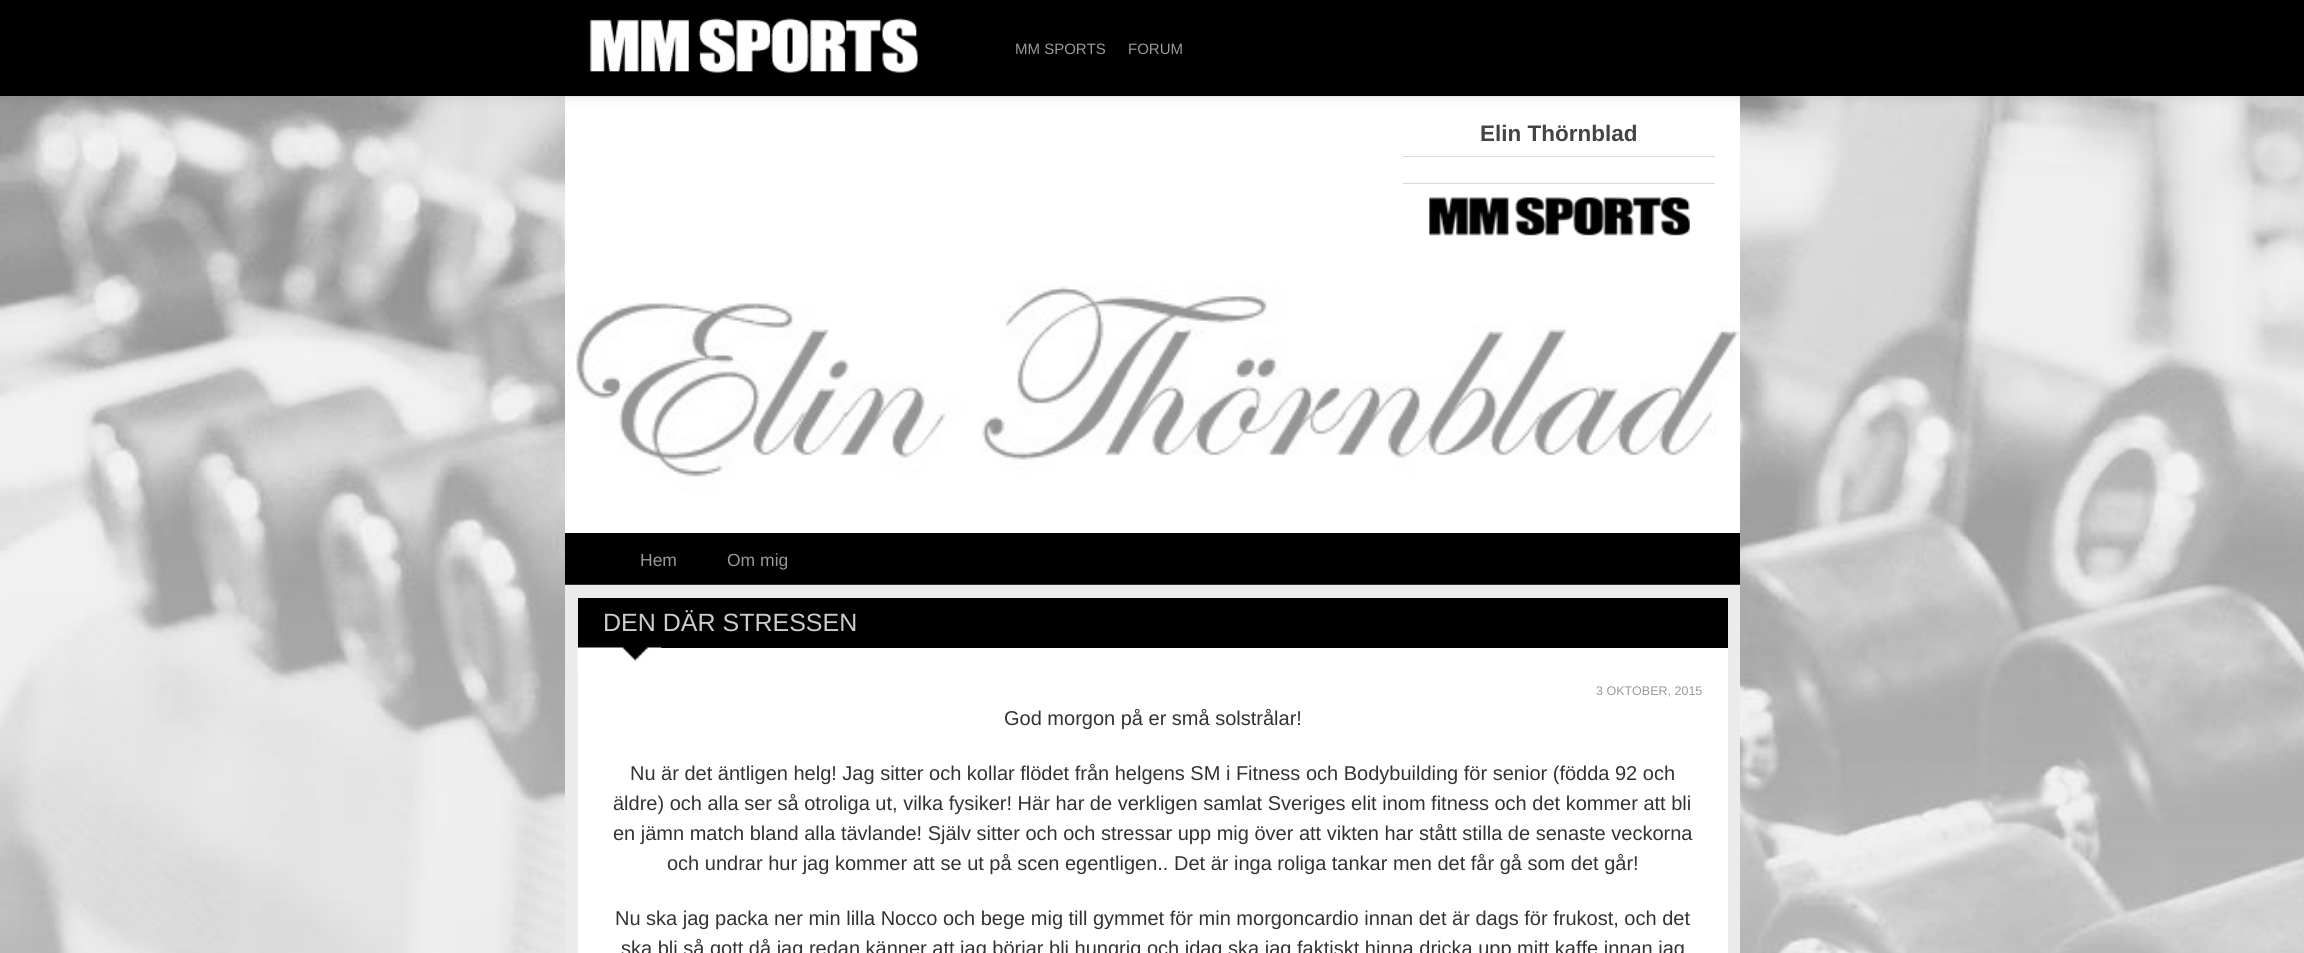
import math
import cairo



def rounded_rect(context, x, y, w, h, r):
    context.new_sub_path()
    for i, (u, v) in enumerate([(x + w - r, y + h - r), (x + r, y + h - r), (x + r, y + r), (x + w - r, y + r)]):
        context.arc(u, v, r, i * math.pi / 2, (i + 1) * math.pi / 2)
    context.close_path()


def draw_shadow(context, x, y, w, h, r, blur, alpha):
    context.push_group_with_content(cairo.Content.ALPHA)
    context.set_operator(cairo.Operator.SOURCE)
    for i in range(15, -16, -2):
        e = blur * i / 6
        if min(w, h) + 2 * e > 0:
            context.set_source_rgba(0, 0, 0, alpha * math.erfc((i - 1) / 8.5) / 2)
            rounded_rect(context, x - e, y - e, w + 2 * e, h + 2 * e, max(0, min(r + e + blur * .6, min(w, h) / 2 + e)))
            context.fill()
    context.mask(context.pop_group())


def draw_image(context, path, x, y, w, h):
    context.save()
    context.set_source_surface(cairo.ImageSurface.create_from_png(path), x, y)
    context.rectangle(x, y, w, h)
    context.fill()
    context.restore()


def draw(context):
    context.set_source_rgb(1, 1, 1)
    context.paint()
    draw_image(context, "images/1.png", 0, 96, 2304, 857)
    context.set_source_rgb(235 / 255, 235 / 255, 235 / 255)
    context.rectangle(565, 96, 1175, 1)
    context.fill()
    draw_image(context, "images/3.png", 565, 96, 1175, 437)
    context.set_source_rgb(0, 0, 0)
    draw_shadow(context, 0, 1, 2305, 97, 0, 6, 0.1)
    context.set_source_rgb(0, 0, 0)
    context.rectangle(0, 0, 2304, 96)
    context.fill()
    draw_image(context, "images/2.png", 589, 18, 329, 55)
    context.set_source_rgb(218 / 255, 218 / 255, 218 / 255)
    context.rectangle(1403, 156, 312, 1)
    context.fill()
    context.rectangle(1403, 183, 312, 1)
    context.fill()
    draw_image(context, "images/4.png", 1429, 197, 261, 39)
    context.set_source_rgb(51 / 255, 51 / 255, 51 / 255)
    context.rectangle(565, 584, 1175, 1)
    context.fill()
    context.set_source_rgb(0, 0, 0)
    context.rectangle(565, 533, 1175, 51)
    context.fill()
    context.set_source_rgb(235 / 255, 235 / 255, 235 / 255)
    context.rectangle(565, 585, 1175, 368)
    context.fill()
    context.set_source_rgb(1, 1, 1)
    context.rectangle(578, 648, 1150, 305)
    context.fill()
    context.set_source_rgb(0, 0, 0)
    context.rectangle(578, 598, 1150, 50)
    context.fill()
    draw_image(context, "images/5.png", 577, 647, 85, 29)
    context.select_font_face("Liberation Sans")
    context.set_font_size(15)
    context.set_source_rgb(153 / 255, 153 / 255, 153 / 255)
    context.move_to(1015, 54)
    context.show_text("MM SPORTS")
    context.move_to(1128, 54)
    context.show_text("FORUM")
    context.select_font_face("Liberation Sans", cairo.FontSlant.NORMAL, cairo.FontWeight.BOLD)
    context.set_font_size(22.5)
    context.set_source_rgb(68 / 255, 68 / 255, 68 / 255)
    context.move_to(1480, 141)
    context.show_text("Elin Thörnblad")
    context.select_font_face("Liberation Sans")
    context.set_font_size(17.5)
    context.set_source_rgb(153 / 255, 153 / 255, 153 / 255)
    context.move_to(640, 566)
    context.show_text("Hem")
    context.move_to(727, 566)
    context.show_text("Om mig")
    context.set_font_size(25)
    context.set_source_rgb(204 / 255, 204 / 255, 204 / 255)
    context.move_to(603, 631)
    context.show_text("DEN DÄR STRESSEN")
    context.set_font_size(12.5)
    context.set_source_rgb(153 / 255, 153 / 255, 153 / 255)
    context.move_to(1596, 695)
    context.show_text("3 OKTOBER, 2015")
    context.set_font_size(20)
    context.set_source_rgb(51 / 255, 51 / 255, 51 / 255)
    context.move_to(1004, 725)
    context.show_text("God morgon på er små solstrålar!")
    context.move_to(630, 780)
    context.show_text("Nu är det äntligen helg! Jag sitter och kollar flödet från helgens SM i Fitness och Bodybuilding för senior (födda 92 och")
    context.move_to(613, 810)
    context.show_text("äldre) och alla ser så otroliga ut, vilka fysiker! Här har de verkligen samlat Sveriges elit inom fitness och det kommer att bli")
    context.move_to(613, 840)
    context.show_text("en jämn match bland alla tävlande! Själv sitter och och stressar upp mig över att vikten har stått stilla de senaste veckorna")
    context.move_to(667, 870)
    context.show_text("och undrar hur jag kommer att se ut på scen egentligen.. Det är inga roliga tankar men det får gå som det går!")
    context.move_to(615, 925)
    context.show_text("Nu ska jag packa ner min lilla Nocco och bege mig till gymmet för min morgoncardio innan det är dags för frukost, och det")
    context.move_to(621, 955)
    context.show_text("ska bli så gott då jag redan känner att jag börjar bli hungrig och idag ska jag faktiskt hinna dricka upp mitt kaffe innan jag")


surface = cairo.ImageSurface(cairo.Format.RGB24, 2304, 953)
context = cairo.Context(surface)
options = cairo.FontOptions()
options.set_hint_metrics(cairo.HintMetrics.OFF)
options.set_hint_style(cairo.HintStyle.NONE)
context.set_font_options(options)
context.set_miter_limit(4)
draw(context)
surface.write_to_png("out.png")
